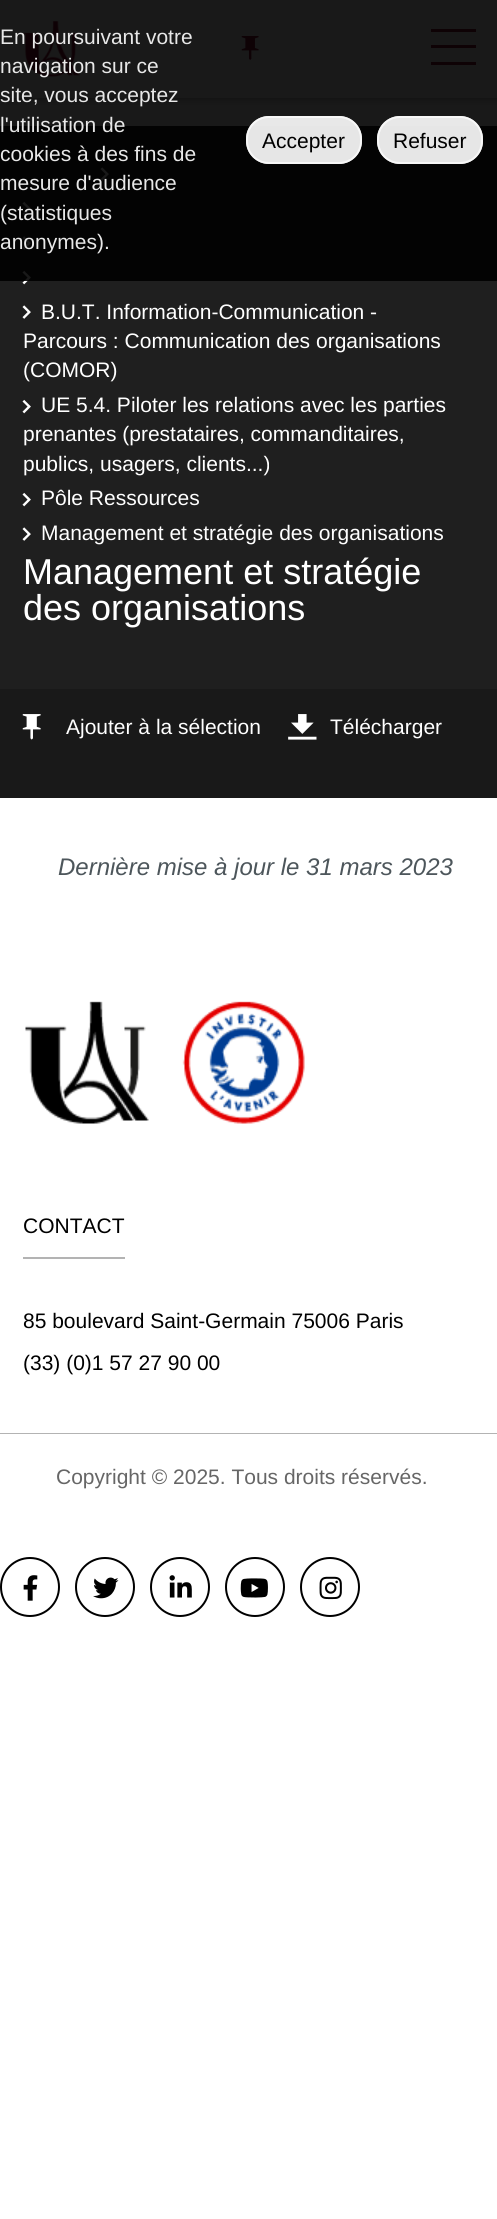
import math
import cairo



def rounded_rect(context, x, y, w, h, r):
    context.new_sub_path()
    for i, (u, v) in enumerate([(x + w - r, y + h - r), (x + r, y + h - r), (x + r, y + r), (x + w - r, y + r)]):
        context.arc(u, v, r, i * math.pi / 2, (i + 1) * math.pi / 2)
    context.close_path()


def draw_shadow(context, x, y, w, h, r, blur, alpha):
    context.push_group_with_content(cairo.Content.ALPHA)
    context.set_operator(cairo.Operator.SOURCE)
    for i in range(15, -16, -2):
        e = blur * i / 6
        if min(w, h) + 2 * e > 0:
            context.set_source_rgba(0, 0, 0, alpha * math.erfc((i - 1) / 8.5) / 2)
            rounded_rect(context, x - e, y - e, w + 2 * e, h + 2 * e, max(0, min(r + e + blur * .6, min(w, h) / 2 + e)))
            context.fill()
    context.mask(context.pop_group())


def draw_image(context, path, x, y, w, h):
    context.save()
    context.set_source_surface(cairo.ImageSurface.create_from_png(path), x, y)
    context.rectangle(x, y, w, h)
    context.fill()
    context.restore()


def draw(context):
    context.set_source_rgb(1, 1, 1)
    context.paint()
    context.set_source_rgb(138 / 255, 138 / 255, 138 / 255)
    draw_shadow(context, 0, 0, 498, 98, 0, 4, 1)
    context.set_source_rgb(1, 1, 1)
    context.rectangle(0, 0, 497, 98)
    context.fill()
    draw_image(context, "images/1.png", 22, 21, 58, 56)
    draw_image(context, "images/2.png", 241, 36, 18, 24)
    context.set_source_rgb(138 / 255, 21 / 255, 56 / 255)
    context.rectangle(431, 29, 45, 3)
    context.fill()
    context.rectangle(431, 45, 45, 3)
    context.fill()
    context.rectangle(431, 62, 45, 3)
    context.fill()
    context.set_source_rgb(31 / 255, 31 / 255, 31 / 255)
    context.rectangle(0, 126, 497, 563)
    context.fill()
    draw_image(context, "images/3.png", 100, 167, 9, 14)
    draw_image(context, "images/4.png", 22, 201, 9, 15)
    draw_image(context, "images/3.png", 22, 236, 9, 14)
    draw_image(context, "images/4.png", 22, 270, 9, 15)
    context.set_source_rgba(0, 0, 0, 0.9)
    context.rectangle(0, 0, 497, 281)
    context.fill()
    context.set_source_rgba(1, 1, 1, 0.9)
    rounded_rect(context, 246, 116, 116, 48, 23)
    context.fill()
    rounded_rect(context, 247, 117, 114, 46, 22)
    context.set_source_rgba(249 / 255, 249 / 255, 249 / 255, 0.9)
    context.stroke()
    context.set_source_rgba(1, 1, 1, 0.9)
    rounded_rect(context, 377, 116, 106, 48, 23)
    context.fill()
    rounded_rect(context, 378, 117, 104, 46, 22)
    context.set_source_rgba(249 / 255, 249 / 255, 249 / 255, 0.9)
    context.stroke()
    draw_image(context, "images/3.png", 22, 305, 9, 14)
    draw_image(context, "images/4.png", 22, 399, 9, 15)
    draw_image(context, "images/4.png", 22, 492, 9, 15)
    draw_image(context, "images/3.png", 22, 527, 9, 14)
    context.set_source_rgb(25 / 255, 25 / 255, 25 / 255)
    context.rectangle(0, 689, 497, 109)
    context.fill()
    draw_image(context, "images/5.png", 22, 714, 19, 26)
    draw_image(context, "images/6.png", 288, 714, 29, 26)
    context.set_source_rgb(179 / 255, 179 / 255, 179 / 255)
    context.rectangle(0, 1433, 497, 1)
    context.fill()
    draw_image(context, "images/7.png", 25, 1001, 280, 123)
    context.rectangle(23, 1257, 102, 2)
    context.fill()
    context.arc(30, 1587, 29, 0, 2 * math.pi)
    context.set_source_rgb(0, 0, 0)
    context.stroke()
    draw_image(context, "images/8.png", 23, 1575, 15, 26)
    context.arc(105, 1587, 29, 0, 2 * math.pi)
    context.stroke()
    draw_image(context, "images/9.png", 93, 1577, 26, 22)
    context.arc(180, 1587, 29, 0, 2 * math.pi)
    context.stroke()
    draw_image(context, "images/10.png", 169, 1575, 23, 23)
    context.arc(255, 1587, 29, 0, 2 * math.pi)
    context.stroke()
    draw_image(context, "images/11.png", 240, 1578, 28, 20)
    context.arc(330, 1587, 29, 0, 2 * math.pi)
    context.stroke()
    draw_image(context, "images/12.png", 319, 1576, 23, 24)
    context.select_font_face("Liberation Sans")
    context.set_font_size(21)
    context.set_source_rgb(232 / 255, 232 / 255, 232 / 255)
    context.move_to(0, 44)
    context.show_text("En poursuivant votre")
    context.move_to(0, 73)
    context.show_text("navigation sur ce")
    context.move_to(0, 102)
    context.show_text("site, vous acceptez")
    context.move_to(0, 132)
    context.show_text("l'utilisation de")
    context.move_to(0, 161)
    context.show_text("cookies à des fins de")
    context.move_to(0, 190)
    context.show_text("mesure d'audience")
    context.move_to(0, 220)
    context.show_text("(statistiques")
    context.move_to(0, 249)
    context.show_text("anonymes).")
    context.set_source_rgb(0, 0, 0)
    context.move_to(262, 148)
    context.show_text("Accepter")
    context.move_to(393, 148)
    context.show_text("Refuser")
    context.set_source_rgb(1, 1, 1)
    context.move_to(41, 319)
    context.show_text("B.U.T. Information-Communication -")
    context.move_to(23, 348)
    context.show_text("Parcours : Communication des organisations")
    context.move_to(23, 377)
    context.show_text("(COMOR)")
    context.move_to(41, 412)
    context.show_text("UE 5.4. Piloter les relations avec les parties")
    context.move_to(23, 441)
    context.show_text("prenantes (prestataires, commanditaires,")
    context.move_to(23, 471)
    context.show_text("publics, usagers, clients...)")
    context.move_to(41, 505)
    context.show_text("Pôle Ressources")
    context.move_to(41, 540)
    context.show_text("Management et stratégie des organisations")
    context.set_font_size(36)
    context.move_to(23, 584)
    context.show_text("Management et stratégie")
    context.move_to(23, 620)
    context.show_text("des organisations")
    context.set_font_size(21)
    context.move_to(66, 734)
    context.show_text("Ajouter à la sélection")
    context.move_to(330, 734)
    context.show_text("Télécharger")
    context.select_font_face("Liberation Sans", cairo.FontSlant.ITALIC)
    context.set_font_size(24)
    context.set_source_rgb(77 / 255, 86 / 255, 91 / 255)
    context.move_to(58, 875)
    context.show_text("Dernière mise à jour le 31 mars 2023")
    context.select_font_face("Liberation Sans")
    context.set_font_size(21)
    context.set_source_rgb(0, 0, 0)
    context.move_to(23, 1233)
    context.show_text("CONTACT")
    context.move_to(23, 1328)
    context.show_text("85 boulevard Saint-Germain 75006 Paris")
    context.move_to(23, 1370)
    context.show_text("(33) (0)1 57 27 90 00")
    context.set_source_rgb(102 / 255, 102 / 255, 102 / 255)
    context.move_to(56, 1484)
    context.show_text("Copyright © 2025. Tous droits réservés.")


surface = cairo.ImageSurface(cairo.Format.RGB24, 497, 2219)
context = cairo.Context(surface)
options = cairo.FontOptions()
options.set_hint_metrics(cairo.HintMetrics.OFF)
options.set_hint_style(cairo.HintStyle.NONE)
context.set_font_options(options)
context.set_miter_limit(4)
draw(context)
surface.write_to_png("out.png")
